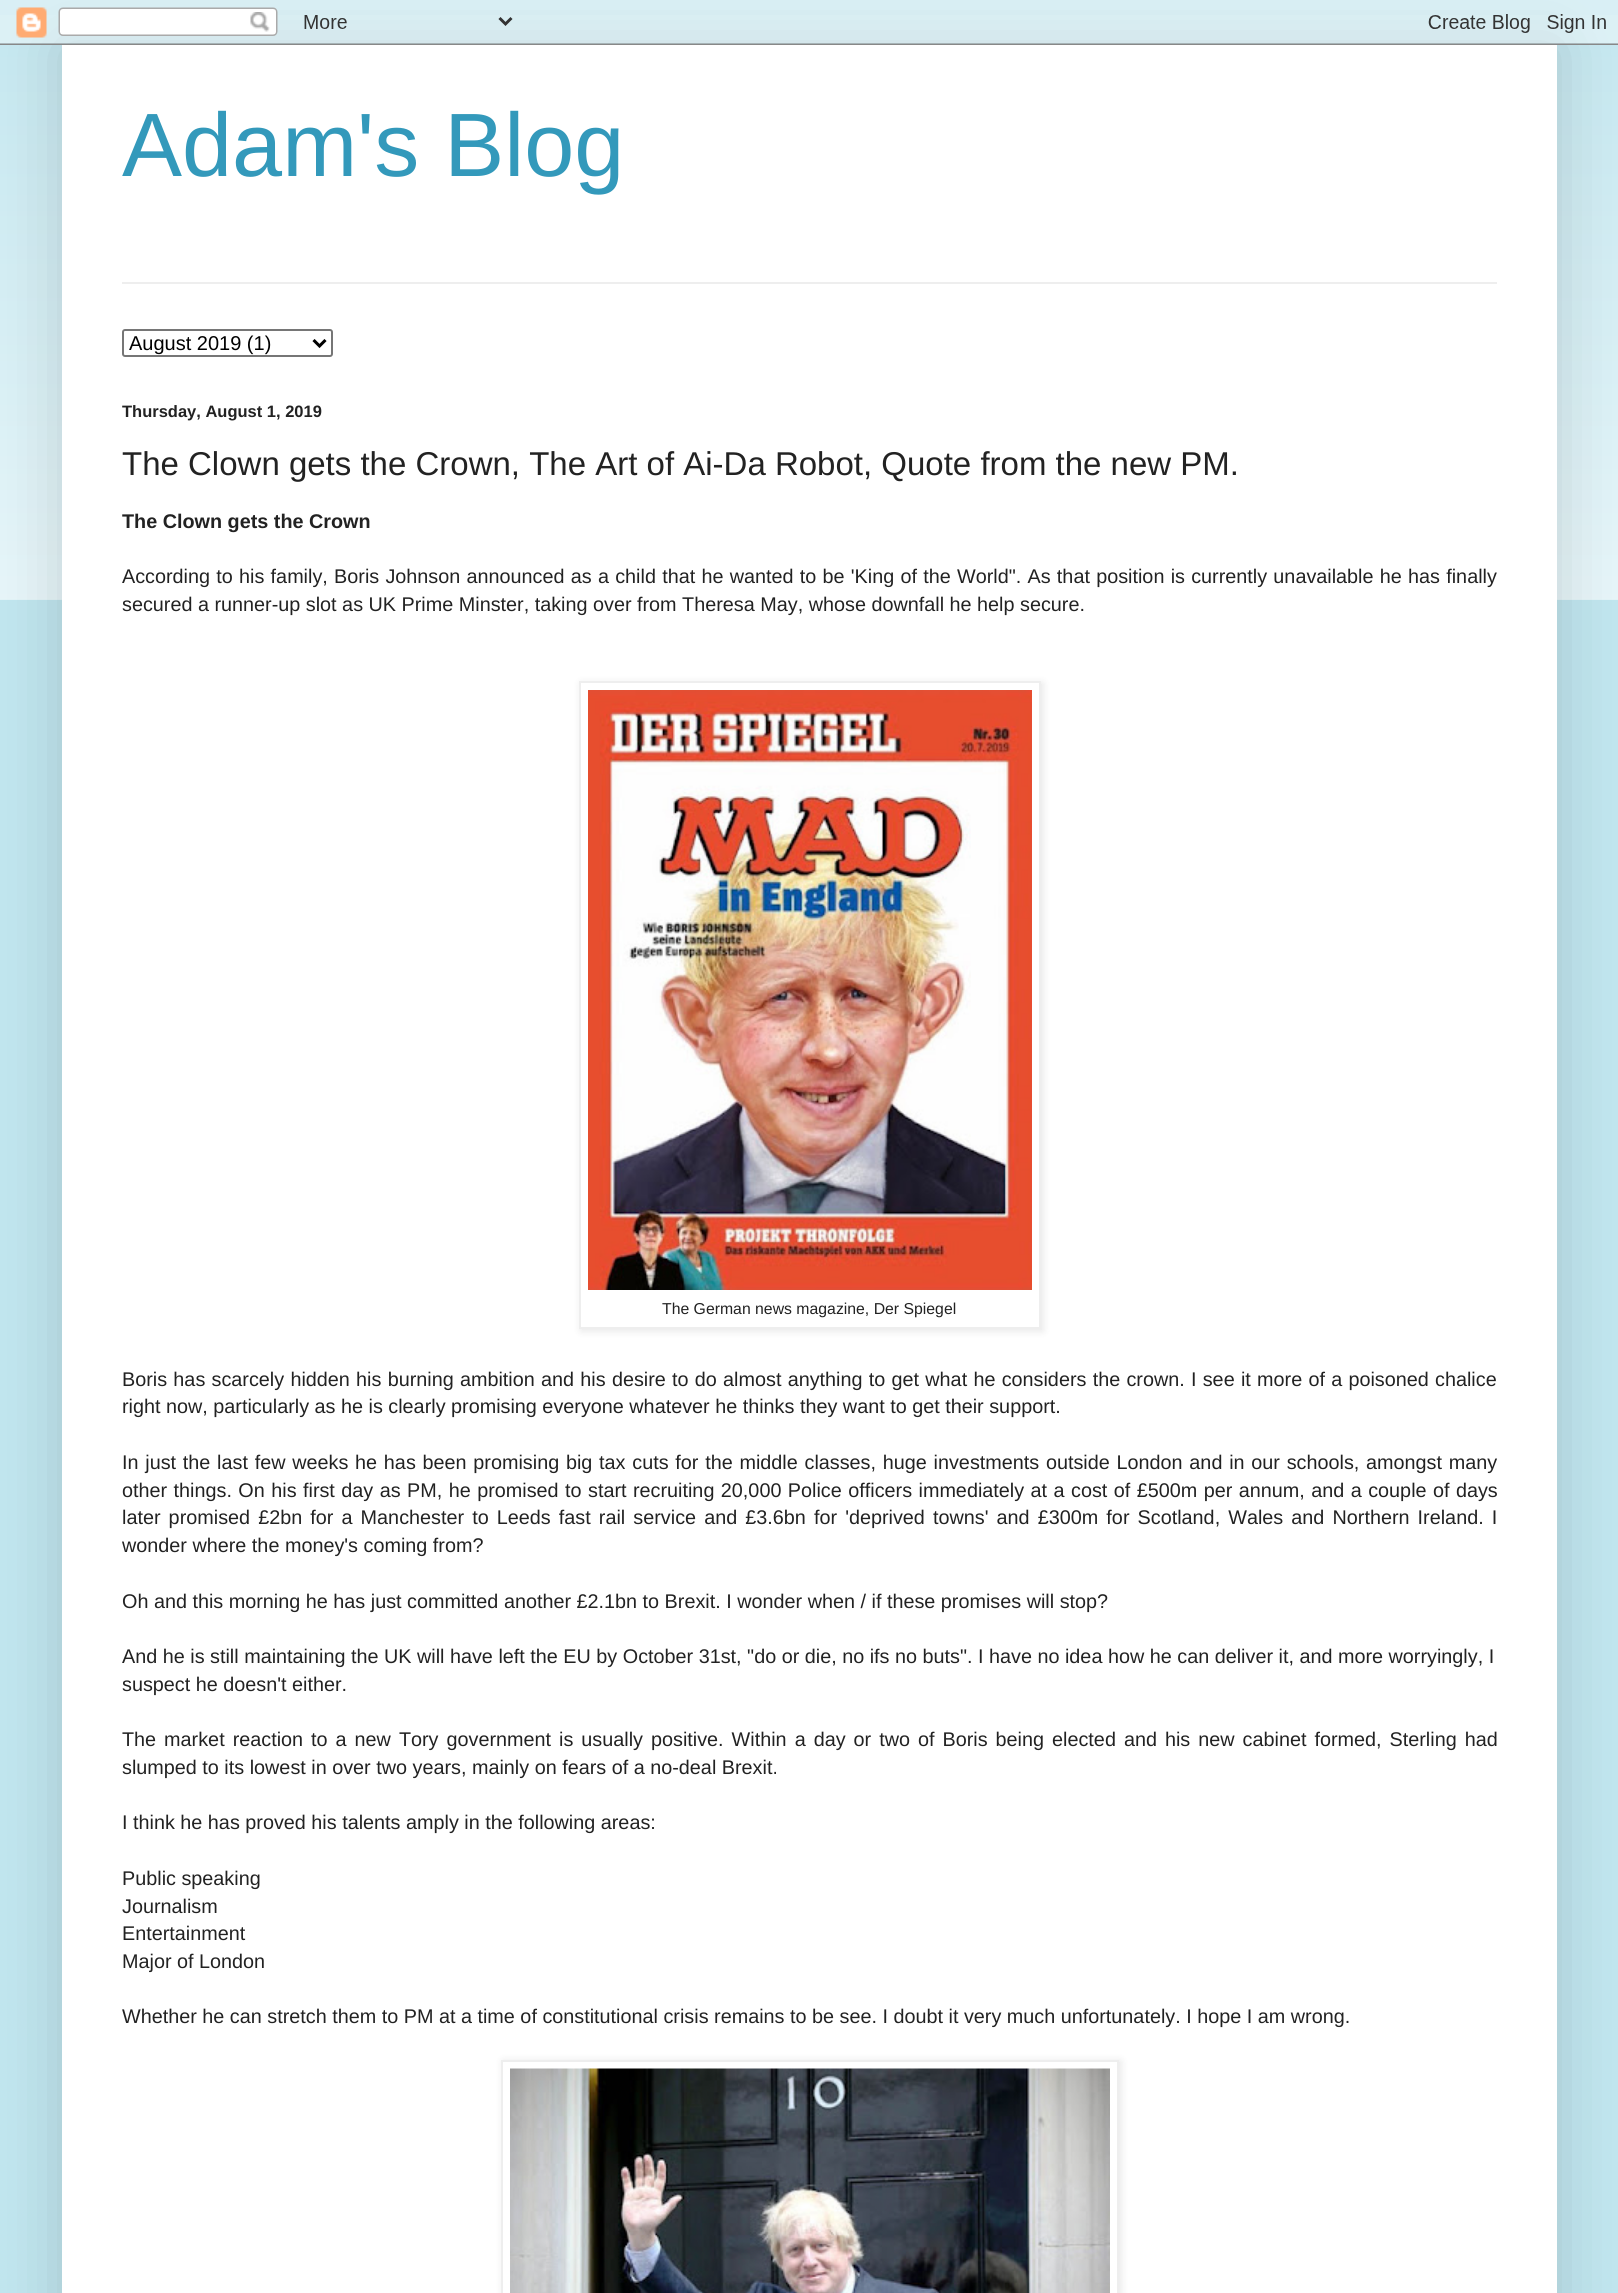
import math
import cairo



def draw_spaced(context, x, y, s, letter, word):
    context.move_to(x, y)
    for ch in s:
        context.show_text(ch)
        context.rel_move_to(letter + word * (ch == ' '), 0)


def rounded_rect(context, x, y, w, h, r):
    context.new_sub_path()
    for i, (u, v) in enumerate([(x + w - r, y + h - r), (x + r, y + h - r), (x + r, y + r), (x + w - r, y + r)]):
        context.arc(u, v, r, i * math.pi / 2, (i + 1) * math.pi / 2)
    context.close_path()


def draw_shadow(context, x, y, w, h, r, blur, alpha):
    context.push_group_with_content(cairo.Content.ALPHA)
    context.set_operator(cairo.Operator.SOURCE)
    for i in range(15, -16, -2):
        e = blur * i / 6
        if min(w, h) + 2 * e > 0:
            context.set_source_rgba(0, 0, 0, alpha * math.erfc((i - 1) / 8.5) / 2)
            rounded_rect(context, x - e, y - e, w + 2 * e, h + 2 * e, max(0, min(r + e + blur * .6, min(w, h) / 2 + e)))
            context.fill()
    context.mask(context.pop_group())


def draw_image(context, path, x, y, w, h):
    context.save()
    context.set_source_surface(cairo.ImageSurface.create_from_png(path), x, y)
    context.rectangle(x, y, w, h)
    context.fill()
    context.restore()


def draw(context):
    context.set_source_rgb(192 / 255, 229 / 255, 238 / 255)
    context.paint()
    draw_image(context, "images/2.png", 0, 15, 1618, 585)
    context.set_source_rgb(0, 0, 0)
    draw_shadow(context, 62, 45, 1495, 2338, 0, 30, 0.15)
    draw_image(context, "images/1.png", 0, 0, 1618, 45)
    context.set_source_rgb(1, 1, 1)
    context.rectangle(62, 45, 1495, 2248)
    context.fill()
    context.set_source_rgb(238 / 255, 238 / 255, 238 / 255)
    context.rectangle(122, 282, 1375, 2)
    context.fill()
    rounded_rect(context, 123, 330, 209, 26, 2)
    context.set_source_rgb(118 / 255, 118 / 255, 118 / 255)
    context.stroke()
    context.new_path()
    context.move_to(313.5, 340)
    context.line_to(319.5, 346)
    context.line_to(325.5, 340)
    context.set_source_rgb(0, 0, 0)
    context.set_line_width(3)
    context.stroke()
    context.save()
    context.set_fill_rule(cairo.FillRule.EVEN_ODD)
    context.new_path()
    context.move_to(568, 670)
    context.line_to(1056, 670)
    context.line_to(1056, 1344)
    context.line_to(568, 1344)
    context.close_path()
    context.move_to(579, 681)
    context.line_to(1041, 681)
    context.line_to(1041, 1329)
    context.line_to(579, 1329)
    context.close_path()
    context.clip()
    context.set_source_rgb(0, 0, 0)
    draw_shadow(context, 581, 683, 462, 648, 0, 4, 0.1)
    context.restore()
    context.rectangle(580, 682, 460, 646)
    context.set_source_rgb(238 / 255, 238 / 255, 238 / 255)
    context.set_line_width(2)
    context.stroke()
    draw_image(context, "images/3.png", 588, 690, 444, 600)
    context.save()
    context.set_fill_rule(cairo.FillRule.EVEN_ODD)
    context.new_path()
    context.move_to(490, 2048)
    context.line_to(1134, 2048)
    context.line_to(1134, 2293)
    context.line_to(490, 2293)
    context.close_path()
    context.move_to(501, 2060)
    context.line_to(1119, 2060)
    context.line_to(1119, 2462)
    context.line_to(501, 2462)
    context.close_path()
    context.clip()
    context.set_source_rgb(0, 0, 0)
    draw_shadow(context, 503, 2061, 618, 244, 0, 4, 0.1)
    context.restore()
    context.rectangle(502, 2061, 616, 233)
    context.stroke()
    draw_image(context, "images/4.png", 510, 2068, 600, 225)
    context.select_font_face("Liberation Sans")
    context.set_font_size(90)
    context.set_source_rgb(51 / 255, 153 / 255, 187 / 255)
    context.move_to(122, 176)
    context.show_text("Adam's Blog")
    context.set_font_size(20)
    context.set_source_rgb(0, 0, 0)
    context.move_to(129, 350)
    context.show_text("August 2019 (1)")
    context.select_font_face("Liberation Sans", cairo.FontSlant.NORMAL, cairo.FontWeight.BOLD)
    context.set_font_size(16.5)
    context.set_source_rgb(34 / 255, 34 / 255, 34 / 255)
    context.move_to(122, 417)
    context.show_text("Thursday, August 1, 2019")
    context.select_font_face("Liberation Sans")
    context.set_font_size(33)
    context.move_to(122, 475)
    context.show_text("The Clown gets the Crown, The Art of Ai-Da Robot, Quote from the new PM.")
    context.select_font_face("Liberation Sans", cairo.FontSlant.NORMAL, cairo.FontWeight.BOLD)
    context.set_font_size(19.8)
    context.move_to(122, 528)
    context.show_text("The Clown gets the Crown")
    context.select_font_face("Liberation Sans")
    draw_spaced(context, 122, 583, "According to his family, Boris Johnson announced as a child that he wanted to be 'King of the World\". As that position is currently unavailable he has finally", 0, 0.75)
    context.move_to(122, 611)
    context.show_text("secured a runner-up slot as UK Prime Minster, taking over from Theresa May, whose downfall he help secure.")
    context.set_font_size(15.8)
    context.move_to(662, 1314)
    context.show_text("The German news magazine, Der Spiegel")
    context.set_font_size(19.8)
    draw_spaced(context, 122, 1386, "Boris has scarcely hidden his burning ambition and his desire to do almost anything to get what he considers the crown. I see it more of a poisoned chalice", 0, 0.75)
    context.move_to(122, 1413)
    context.show_text("right now, particularly as he is clearly promising everyone whatever he thinks they want to get their support.")
    draw_spaced(context, 122, 1469, "In just the last few weeks he has been promising big tax cuts for the middle classes, huge investments outside London and in our schools, amongst many", 0, 1.25)
    draw_spaced(context, 122, 1497, "other things. On his first day as PM, he promised to start recruiting 20,000 Police officers immediately at a cost of £500m per annum, and a couple of days", 0, 0.95)
    draw_spaced(context, 122, 1524, "later promised £2bn for a Manchester to Leeds fast rail service and £3.6bn for 'deprived towns' and £300m for Scotland, Wales and Northern Ireland. I", 0, 2.6)
    context.move_to(122, 1552)
    context.show_text("wonder where the money's coming from?")
    context.move_to(122, 1608)
    context.show_text("Oh and this morning he has just committed another £2.1bn to Brexit. I wonder when / if these promises will stop?")
    context.move_to(122, 1663)
    context.show_text("And he is still maintaining the UK will have left the EU by October 31st, \"do or die, no ifs no buts\". I have no idea how he can deliver it, and more worryingly, I")
    context.move_to(122, 1691)
    context.show_text("suspect he doesn't either.")
    draw_spaced(context, 122, 1746, "The market reaction to a new Tory government is usually positive. Within a day or two of Boris being elected and his new cabinet formed, Sterling had", 0, 2.5)
    context.move_to(122, 1774)
    context.show_text("slumped to its lowest in over two years, mainly on fears of a no-deal Brexit.")
    context.move_to(122, 1829)
    context.show_text("I think he has proved his talents amply in the following areas:")
    context.move_to(122, 1885)
    context.show_text("Public speaking")
    context.move_to(122, 1913)
    context.show_text("Journalism")
    context.move_to(122, 1940)
    context.show_text("Entertainment")
    context.move_to(122, 1968)
    context.show_text("Major of London")
    context.move_to(122, 2023)
    context.show_text("Whether he can stretch them to PM at a time of constitutional crisis remains to be see. I doubt it very much unfortunately. I hope I am wrong.")


surface = cairo.ImageSurface(cairo.Format.RGB24, 1618, 2293)
context = cairo.Context(surface)
options = cairo.FontOptions()
options.set_hint_metrics(cairo.HintMetrics.OFF)
options.set_hint_style(cairo.HintStyle.NONE)
context.set_font_options(options)
context.set_miter_limit(4)
draw(context)
surface.write_to_png("out.png")
